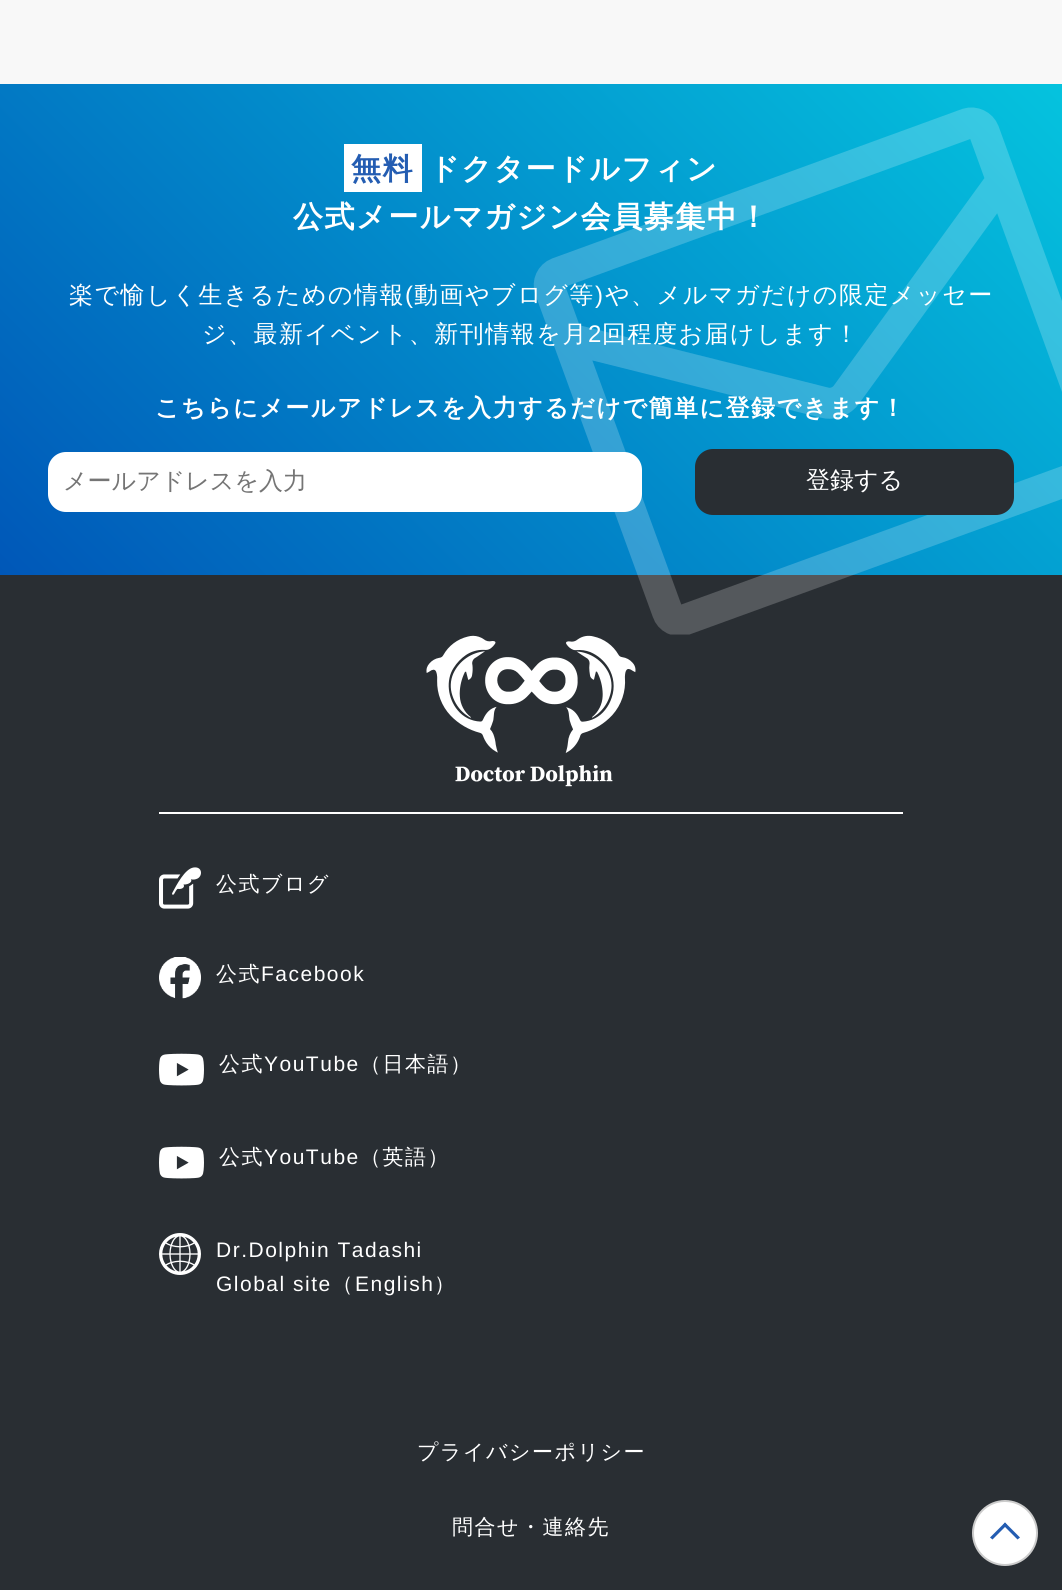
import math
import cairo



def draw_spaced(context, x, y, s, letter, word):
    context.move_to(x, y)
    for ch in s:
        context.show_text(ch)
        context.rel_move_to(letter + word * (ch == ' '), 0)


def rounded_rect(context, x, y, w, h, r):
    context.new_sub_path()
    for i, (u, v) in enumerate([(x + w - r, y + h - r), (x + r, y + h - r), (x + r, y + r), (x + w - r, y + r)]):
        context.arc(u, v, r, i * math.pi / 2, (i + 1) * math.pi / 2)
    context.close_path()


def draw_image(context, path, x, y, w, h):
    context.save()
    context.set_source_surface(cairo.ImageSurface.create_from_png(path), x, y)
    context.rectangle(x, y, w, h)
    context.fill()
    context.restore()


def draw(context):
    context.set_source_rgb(248 / 255, 248 / 255, 248 / 255)
    context.paint()
    gradient = cairo.LinearGradient(919, -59, 143, 717)
    gradient.add_color_stop_rgba(0, 5 / 255, 195 / 255, 222 / 255, 1)
    gradient.add_color_stop_rgba(1, 0, 87 / 255, 184 / 255, 1)
    context.set_source(gradient)
    context.rectangle(0, 84, 1062, 491)
    context.fill()
    context.set_source_rgb(1, 1, 1)
    context.rectangle(344, 144, 78, 48)
    context.fill()
    context.set_source_rgb(41 / 255, 46 / 255, 51 / 255)
    context.rectangle(0, 575, 1062, 1015)
    context.fill()
    draw_image(context, "images/1.png", 426, 635, 210, 152)
    context.set_source_rgb(1, 1, 1)
    context.rectangle(159, 812, 744, 2)
    context.fill()
    draw_image(context, "images/2.png", 159, 867, 42, 42)
    draw_image(context, "images/3.png", 159, 957, 42, 42)
    draw_image(context, "images/4.png", 159, 1053, 45, 33)
    draw_image(context, "images/4.png", 159, 1146, 45, 33)
    draw_image(context, "images/5.png", 159, 1233, 42, 42)
    context.arc(1005, 1533, 32, 0, 2 * math.pi)
    context.fill_preserve()
    context.set_source_rgb(204 / 255, 204 / 255, 204 / 255)
    context.stroke()
    context.set_source_rgb(36 / 255, 93 / 255, 178 / 255)
    context.new_path()
    context.move_to(1005, 1522.5)
    context.line_to(1020, 1537.5)
    context.line_to(1017.5, 1539.5)
    context.line_to(1003, 1525)
    context.close_path()
    context.fill()
    context.new_path()
    context.move_to(1005, 1522.5)
    context.line_to(1007, 1525)
    context.line_to(992.5, 1539.5)
    context.line_to(990, 1537.5)
    context.close_path()
    context.fill()
    context.select_font_face("WenQuanYi Zen Hei", cairo.FontSlant.NORMAL, cairo.FontWeight.BOLD)
    context.set_font_size(30)
    draw_spaced(context, 351, 179, "無料", 1.5, 0)
    context.set_source_rgb(1, 1, 1)
    draw_spaced(context, 429, 179, "ドクタードルフィン", 1.5, 0)
    draw_spaced(context, 293, 227, "公式メールマガジン会員募集中！", 1.5, 0)
    context.select_font_face("WenQuanYi Zen Hei Medium")
    context.set_font_size(24)
    draw_spaced(context, 69, 303, "楽で愉しく生きるための情報", 1.5, 0)
    context.select_font_face("Liberation Sans")
    draw_spaced(context, 405, 303, "(", 1.5, 0)
    context.select_font_face("WenQuanYi Zen Hei Medium")
    draw_spaced(context, 414, 303, "動画やブログ等", 1.5, 0)
    context.select_font_face("Liberation Sans")
    draw_spaced(context, 595, 303, ")", 1.5, 0)
    context.select_font_face("WenQuanYi Zen Hei Medium")
    draw_spaced(context, 605, 303, "や、メルマガだけの限定メッセー", 1.5, 0)
    draw_spaced(context, 202, 342, "ジ、最新イベント、新刊情報を月", 1.5, 0)
    context.select_font_face("Liberation Sans")
    draw_spaced(context, 588, 342, "2", 1.5, 0)
    context.select_font_face("WenQuanYi Zen Hei Medium")
    draw_spaced(context, 602, 342, "回程度お届けします！", 1.5, 0)
    context.select_font_face("WenQuanYi Zen Hei", cairo.FontSlant.NORMAL, cairo.FontWeight.BOLD)
    draw_spaced(context, 155, 416, "こちらにメールアドレスを入力するだけで簡単に登録できます！", 1.5, 0)
    context.save()
    context.new_path()
    context.move_to(531, 99)
    context.line_to(1062, 99)
    context.line_to(1062, 634.5)
    context.line_to(531, 634.5)
    context.close_path()
    context.clip()
    context.new_path()
    context.move_to(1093.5, 471)
    context.line_to(684, 620)
    context.curve_to(677, 622.5, 669.5, 618.5, 667.5, 612)
    context.line_to(550, 289.5)
    context.curve_to(547.5, 283, 551, 275.5, 557.5, 273)
    context.line_to(967.5, 123.5)
    context.curve_to(974, 121.5, 981.5, 125, 984, 131.5)
    context.line_to(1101, 454)
    context.curve_to(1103.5, 460.5, 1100.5, 468.5, 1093.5, 471)
    context.close_path()
    context.move_to(570.5, 339)
    context.line_to(824, 402.5)
    context.curve_to(832.5, 405, 841.5, 401.5, 846.5, 394.5)
    context.line_to(1000, 183)
    context.set_source_rgba(1, 1, 1, 0.2)
    context.set_line_width(31)
    context.stroke()
    context.restore()
    rounded_rect(context, 48, 452, 594, 60, 18)
    context.fill()
    context.select_font_face("WenQuanYi Zen Hei Medium")
    context.set_source_rgb(117 / 255, 117 / 255, 117 / 255)
    context.move_to(63, 489)
    context.show_text("メールアドレスを入力")
    context.set_source_rgb(41 / 255, 46 / 255, 51 / 255)
    rounded_rect(context, 696.5, 450.5, 316, 63, 16.5)
    context.fill_preserve()
    context.set_line_width(3)
    context.stroke()
    context.set_source_rgb(1, 1, 1)
    context.move_to(806, 488)
    context.show_text("登録する")
    context.set_font_size(21)
    draw_spaced(context, 216, 891, "公式ブログ", 1.5, 0)
    draw_spaced(context, 216, 981, "公式", 1.5, 0)
    context.select_font_face("Liberation Sans")
    draw_spaced(context, 261, 981, "Facebook", 1.5, 0)
    context.select_font_face("WenQuanYi Zen Hei Medium")
    draw_spaced(context, 219, 1071, "公式", 1.5, 0)
    context.select_font_face("Liberation Sans")
    draw_spaced(context, 264, 1071, "YouTube", 1.5, 0)
    context.select_font_face("WenQuanYi Zen Hei Medium")
    draw_spaced(context, 360, 1071, "（日本語）", 1.5, 0)
    draw_spaced(context, 219, 1164, "公式", 1.5, 0)
    context.select_font_face("Liberation Sans")
    draw_spaced(context, 264, 1164, "YouTube", 1.5, 0)
    context.select_font_face("WenQuanYi Zen Hei Medium")
    draw_spaced(context, 360, 1164, "（英語）", 1.5, 0)
    context.select_font_face("Liberation Sans")
    draw_spaced(context, 216, 1257, "Dr.Dolphin Tadashi", 1.5, 0)
    draw_spaced(context, 216, 1291, "Global site", 1.5, 0)
    context.select_font_face("WenQuanYi Zen Hei Medium")
    draw_spaced(context, 332, 1291, "（", 1.5, 0)
    context.select_font_face("Liberation Sans")
    draw_spaced(context, 355, 1291, "English", 1.5, 0)
    context.select_font_face("WenQuanYi Zen Hei Medium")
    draw_spaced(context, 434, 1291, "）", 1.5, 0)
    draw_spaced(context, 417, 1459, "プライバシーポリシー", 1.5, 0)
    draw_spaced(context, 452, 1534, "問合せ・連絡先", 1.5, 0)


surface = cairo.ImageSurface(cairo.Format.RGB24, 1062, 1590)
context = cairo.Context(surface)
options = cairo.FontOptions()
options.set_hint_metrics(cairo.HintMetrics.OFF)
options.set_hint_style(cairo.HintStyle.NONE)
context.set_font_options(options)
context.set_miter_limit(4)
draw(context)
surface.write_to_png("out.png")
